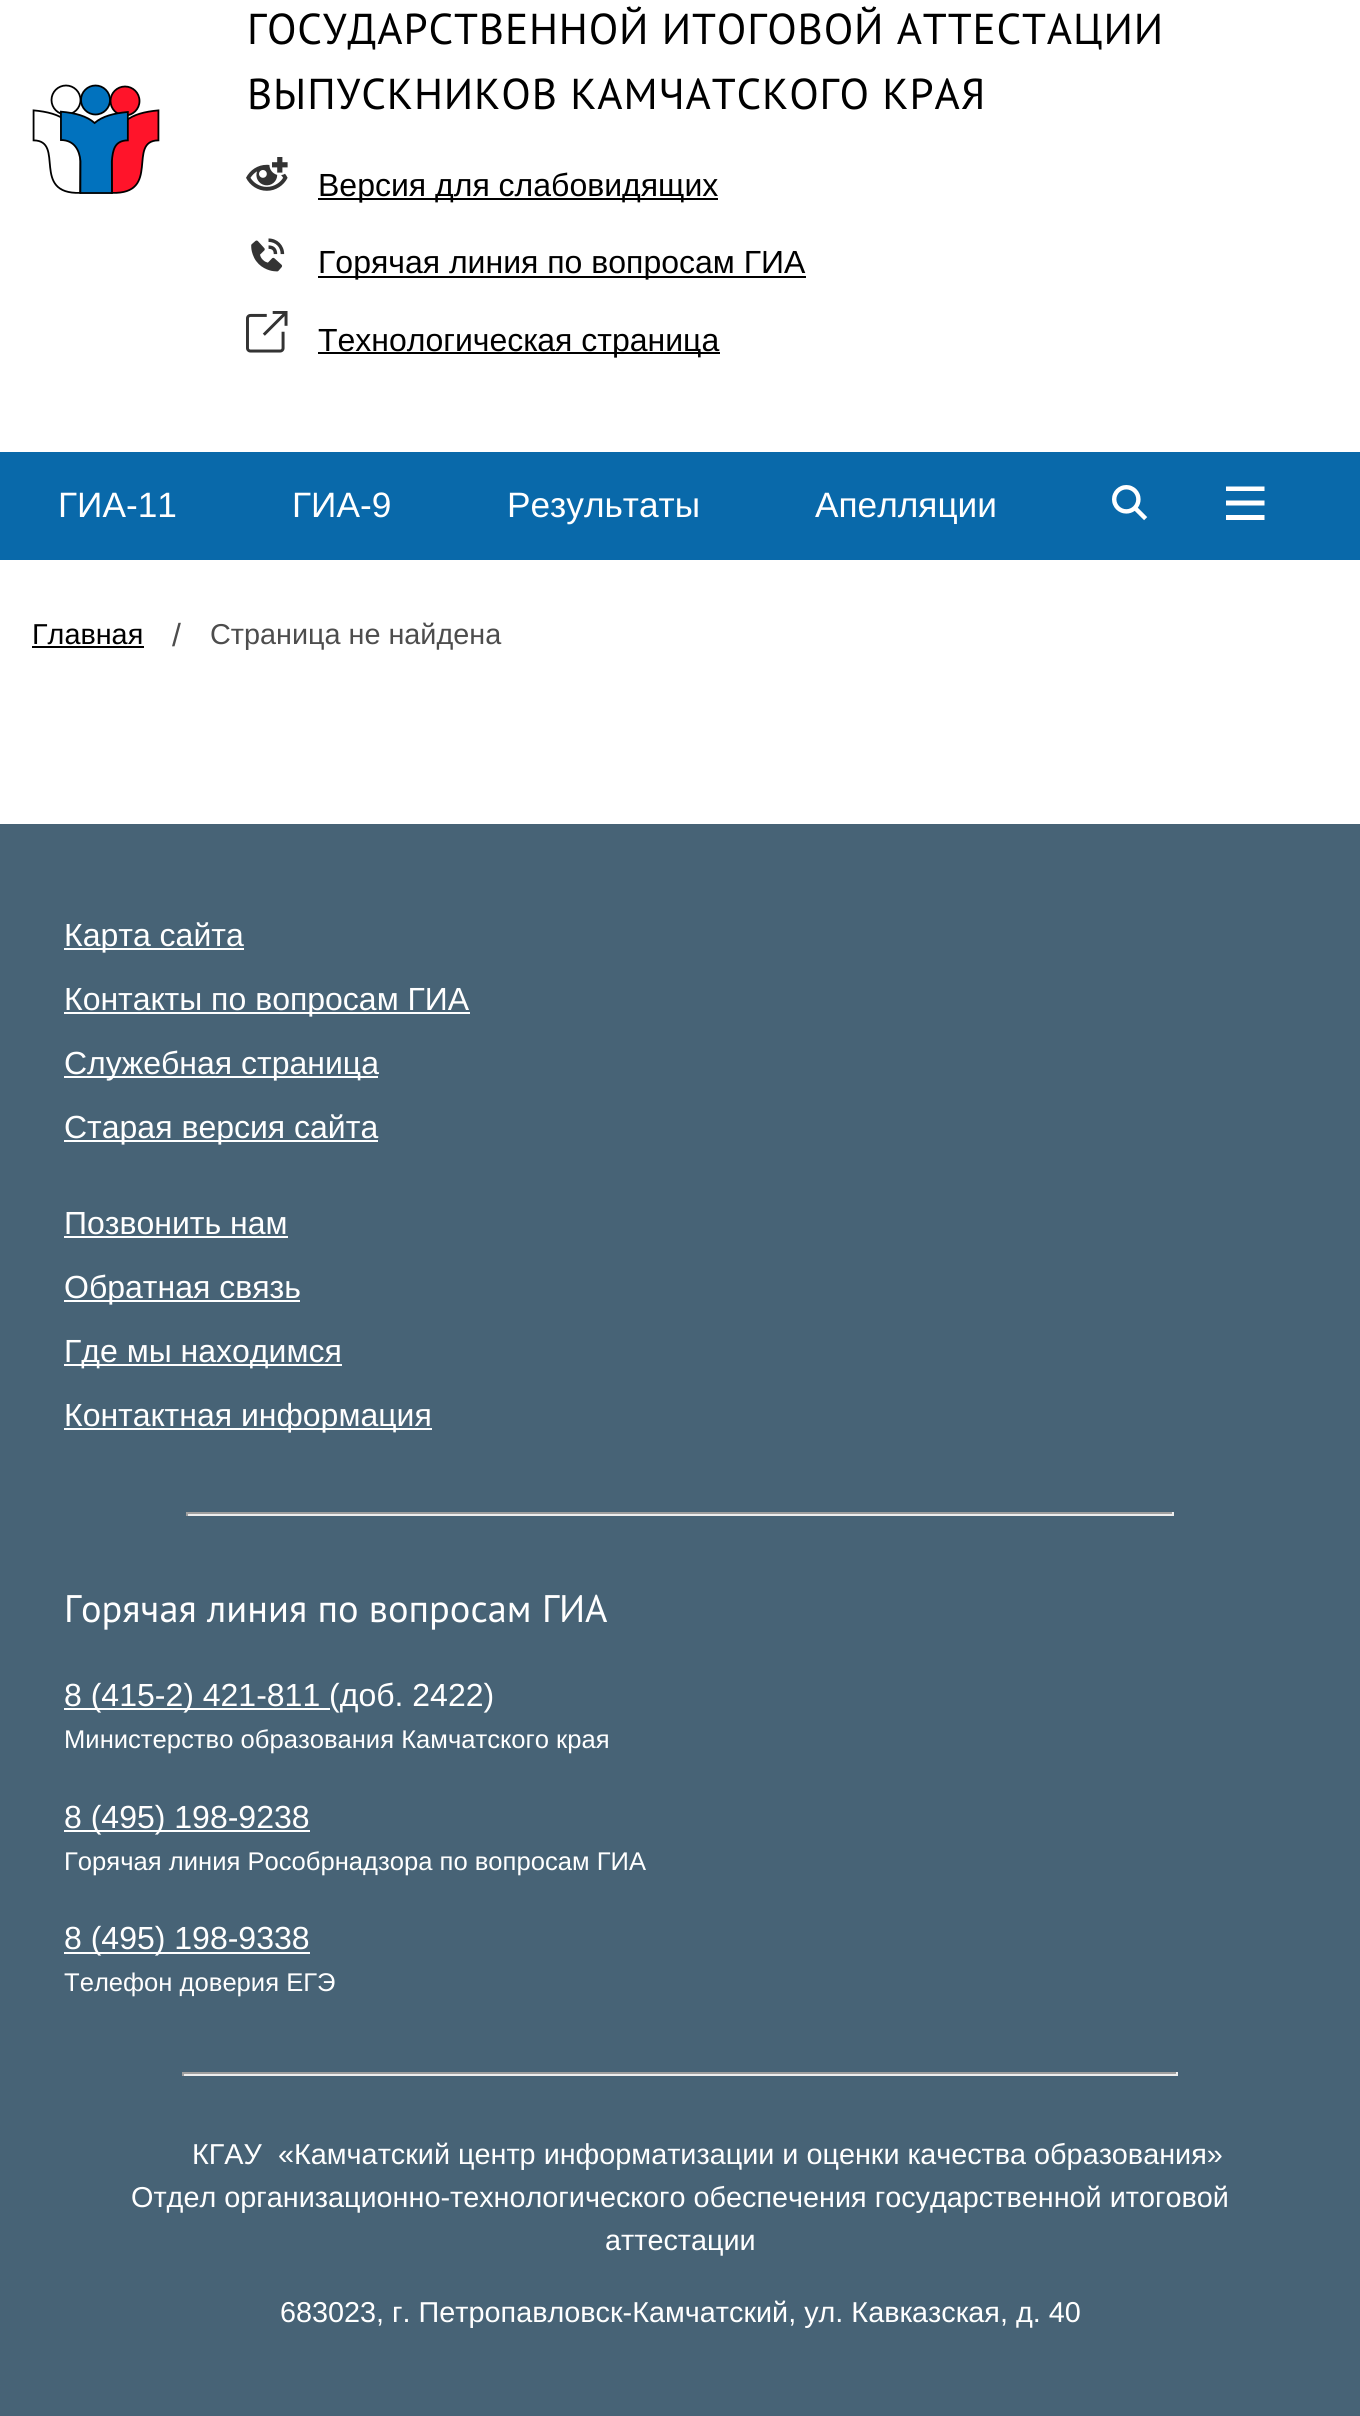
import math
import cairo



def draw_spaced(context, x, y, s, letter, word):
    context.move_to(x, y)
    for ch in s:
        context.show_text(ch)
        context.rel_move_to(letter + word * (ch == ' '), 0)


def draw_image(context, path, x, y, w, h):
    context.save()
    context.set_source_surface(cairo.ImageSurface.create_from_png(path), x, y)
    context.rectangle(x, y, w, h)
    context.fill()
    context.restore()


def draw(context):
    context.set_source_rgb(1, 1, 1)
    context.paint()
    draw_image(context, "images/1.png", 32, 84, 128, 110)
    draw_image(context, "images/2.png", 246, 157, 42, 34)
    context.set_source_rgb(0, 0, 0)
    context.rectangle(318, 198, 400, 2)
    context.fill()
    draw_image(context, "images/3.png", 251, 238, 34, 34)
    context.rectangle(318, 276, 488, 2)
    context.fill()
    draw_image(context, "images/4.png", 246, 311, 42, 42)
    context.rectangle(318, 352, 402, 2)
    context.fill()
    context.set_source_rgb(9 / 255, 105 / 255, 170 / 255)
    context.rectangle(0, 452, 1360, 108)
    context.fill()
    draw_image(context, "images/5.png", 1112, 485, 36, 36)
    context.set_source_rgb(1, 1, 1)
    context.new_path()
    context.move_to(1226, 486.5)
    context.line_to(1226, 491)
    context.line_to(1264.5, 491)
    context.line_to(1264.5, 486.5)
    context.close_path()
    context.move_to(1226, 500.5)
    context.line_to(1226, 505.5)
    context.line_to(1264.5, 505.5)
    context.line_to(1264.5, 500.5)
    context.close_path()
    context.move_to(1226, 515)
    context.line_to(1226, 520)
    context.line_to(1264.5, 520)
    context.line_to(1264.5, 515)
    context.close_path()
    context.fill()
    context.set_source_rgb(0, 0, 0)
    context.rectangle(32, 646, 112, 2)
    context.fill()
    context.set_source_rgb(71 / 255, 99 / 255, 118 / 255)
    context.rectangle(0, 824, 1360, 1592)
    context.fill()
    context.set_source_rgb(1, 1, 1)
    context.rectangle(64, 948, 180, 2)
    context.fill()
    context.rectangle(64, 1012, 406, 2)
    context.fill()
    context.rectangle(64, 1076, 314, 2)
    context.fill()
    context.rectangle(64, 1140, 314, 2)
    context.fill()
    context.rectangle(64, 1236, 224, 2)
    context.fill()
    context.rectangle(64, 1300, 236, 2)
    context.fill()
    context.rectangle(64, 1364, 278, 2)
    context.fill()
    context.rectangle(64, 1428, 368, 2)
    context.fill()
    context.set_source_rgb(159 / 255, 159 / 255, 159 / 255)
    context.rectangle(186, 1512, 988, 2)
    context.fill()
    context.set_source_rgb(238 / 255, 238 / 255, 238 / 255)
    context.rectangle(1172, 1512, 2, 4)
    context.fill()
    context.rectangle(186, 1514, 988, 2)
    context.fill()
    context.set_source_rgb(159 / 255, 159 / 255, 159 / 255)
    context.rectangle(186, 1512, 2, 4)
    context.fill()
    context.set_source_rgb(1, 1, 1)
    context.rectangle(64, 1708, 266, 2)
    context.fill()
    context.rectangle(64, 1830, 246, 2)
    context.fill()
    context.rectangle(64, 1952, 246, 2)
    context.fill()
    context.set_source_rgb(159 / 255, 159 / 255, 159 / 255)
    context.rectangle(182, 2072, 996, 2)
    context.fill()
    context.set_source_rgb(238 / 255, 238 / 255, 238 / 255)
    context.rectangle(1176, 2072, 2, 4)
    context.fill()
    context.rectangle(182, 2074, 996, 2)
    context.fill()
    context.set_source_rgb(159 / 255, 159 / 255, 159 / 255)
    context.rectangle(182, 2072, 2, 4)
    context.fill()
    context.select_font_face("PT Sans")
    context.set_font_size(43.2)
    context.set_source_rgb(0, 0, 0)
    draw_spaced(context, 247, 44, "ГОСУДАРСТВЕННОЙ ИТОГОВОЙ АТТЕСТАЦИИ", 0.85, 0)
    draw_spaced(context, 247, 109, "ВЫПУСКНИКОВ КАМЧАТСКОГО КРАЯ", 0.85, 0)
    context.select_font_face("Liberation Sans")
    context.set_font_size(32)
    context.move_to(318, 196)
    context.show_text("Версия для слабовидящих")
    context.move_to(318, 273)
    context.show_text("Горячая линия по вопросам ГИА")
    context.move_to(318, 351)
    context.show_text("Технологическая страница")
    context.set_font_size(35.25)
    context.set_source_rgb(1, 1, 1)
    context.move_to(58, 517)
    context.show_text("ГИА-11")
    context.move_to(292, 517)
    context.show_text("ГИА-9")
    context.move_to(507, 517)
    context.show_text("Результаты")
    context.move_to(815, 517)
    context.show_text("Апелляции")
    context.set_font_size(28.8)
    context.set_source_rgb(0, 0, 0)
    context.move_to(32, 644)
    context.show_text("Главная")
    context.set_font_size(32)
    context.set_source_rgb(77 / 255, 77 / 255, 77 / 255)
    context.move_to(172, 646)
    context.show_text("/")
    context.set_font_size(28.8)
    context.move_to(210, 644)
    context.show_text("Страница не найдена")
    context.set_font_size(32)
    context.set_source_rgb(1, 1, 1)
    context.move_to(64, 946)
    context.show_text("Карта сайта")
    context.move_to(64, 1010)
    context.show_text("Контакты по вопросам ГИА")
    context.move_to(64, 1074)
    context.show_text("Служебная страница")
    context.move_to(64, 1138)
    context.show_text("Старая версия сайта")
    context.move_to(64, 1234)
    context.show_text("Позвонить нам")
    context.move_to(64, 1298)
    context.show_text("Обратная связь")
    context.move_to(64, 1362)
    context.show_text("Где мы находимся")
    context.move_to(64, 1426)
    context.show_text("Контактная информация")
    context.select_font_face("PT Sans")
    context.set_font_size(38.4)
    context.move_to(64, 1622)
    context.show_text("Горячая линия по вопросам")
    context.move_to(542, 1622)
    context.show_text("ГИА")
    context.select_font_face("Liberation Sans")
    context.set_font_size(32)
    context.move_to(64, 1706)
    context.show_text("8 (415-2) 421-811 (доб. 2422)")
    context.set_font_size(25.6)
    context.move_to(64, 1748)
    context.show_text("Министерство образования Камчатского края")
    context.set_font_size(32)
    context.move_to(64, 1828)
    context.show_text("8 (495) 198-9238")
    context.set_font_size(25.6)
    context.move_to(64, 1870)
    context.show_text("Горячая линия Рособрнадзора по вопросам ГИА")
    context.set_font_size(32)
    context.move_to(64, 1949)
    context.show_text("8 (495) 198-9338")
    context.set_font_size(25.6)
    context.move_to(64, 1991)
    context.show_text("Телефон доверия ЕГЭ")
    context.set_font_size(28.8)
    context.move_to(192, 2164)
    context.show_text("КГАУ")
    context.move_to(278, 2164)
    context.show_text("«Камчатский центр информатизации и оценки качества образования»")
    context.move_to(131, 2207)
    context.show_text("Отдел организационно-технологического обеспечения государственной итоговой")
    context.move_to(605, 2250)
    context.show_text("аттестации")
    context.move_to(280, 2322)
    context.show_text("683023, г. Петропавловск-Камчатский, ул. Кавказская, д. 40")


surface = cairo.ImageSurface(cairo.Format.RGB24, 1360, 2416)
context = cairo.Context(surface)
options = cairo.FontOptions()
options.set_hint_metrics(cairo.HintMetrics.OFF)
options.set_hint_style(cairo.HintStyle.NONE)
context.set_font_options(options)
context.set_miter_limit(4)
draw(context)
surface.write_to_png("out.png")
